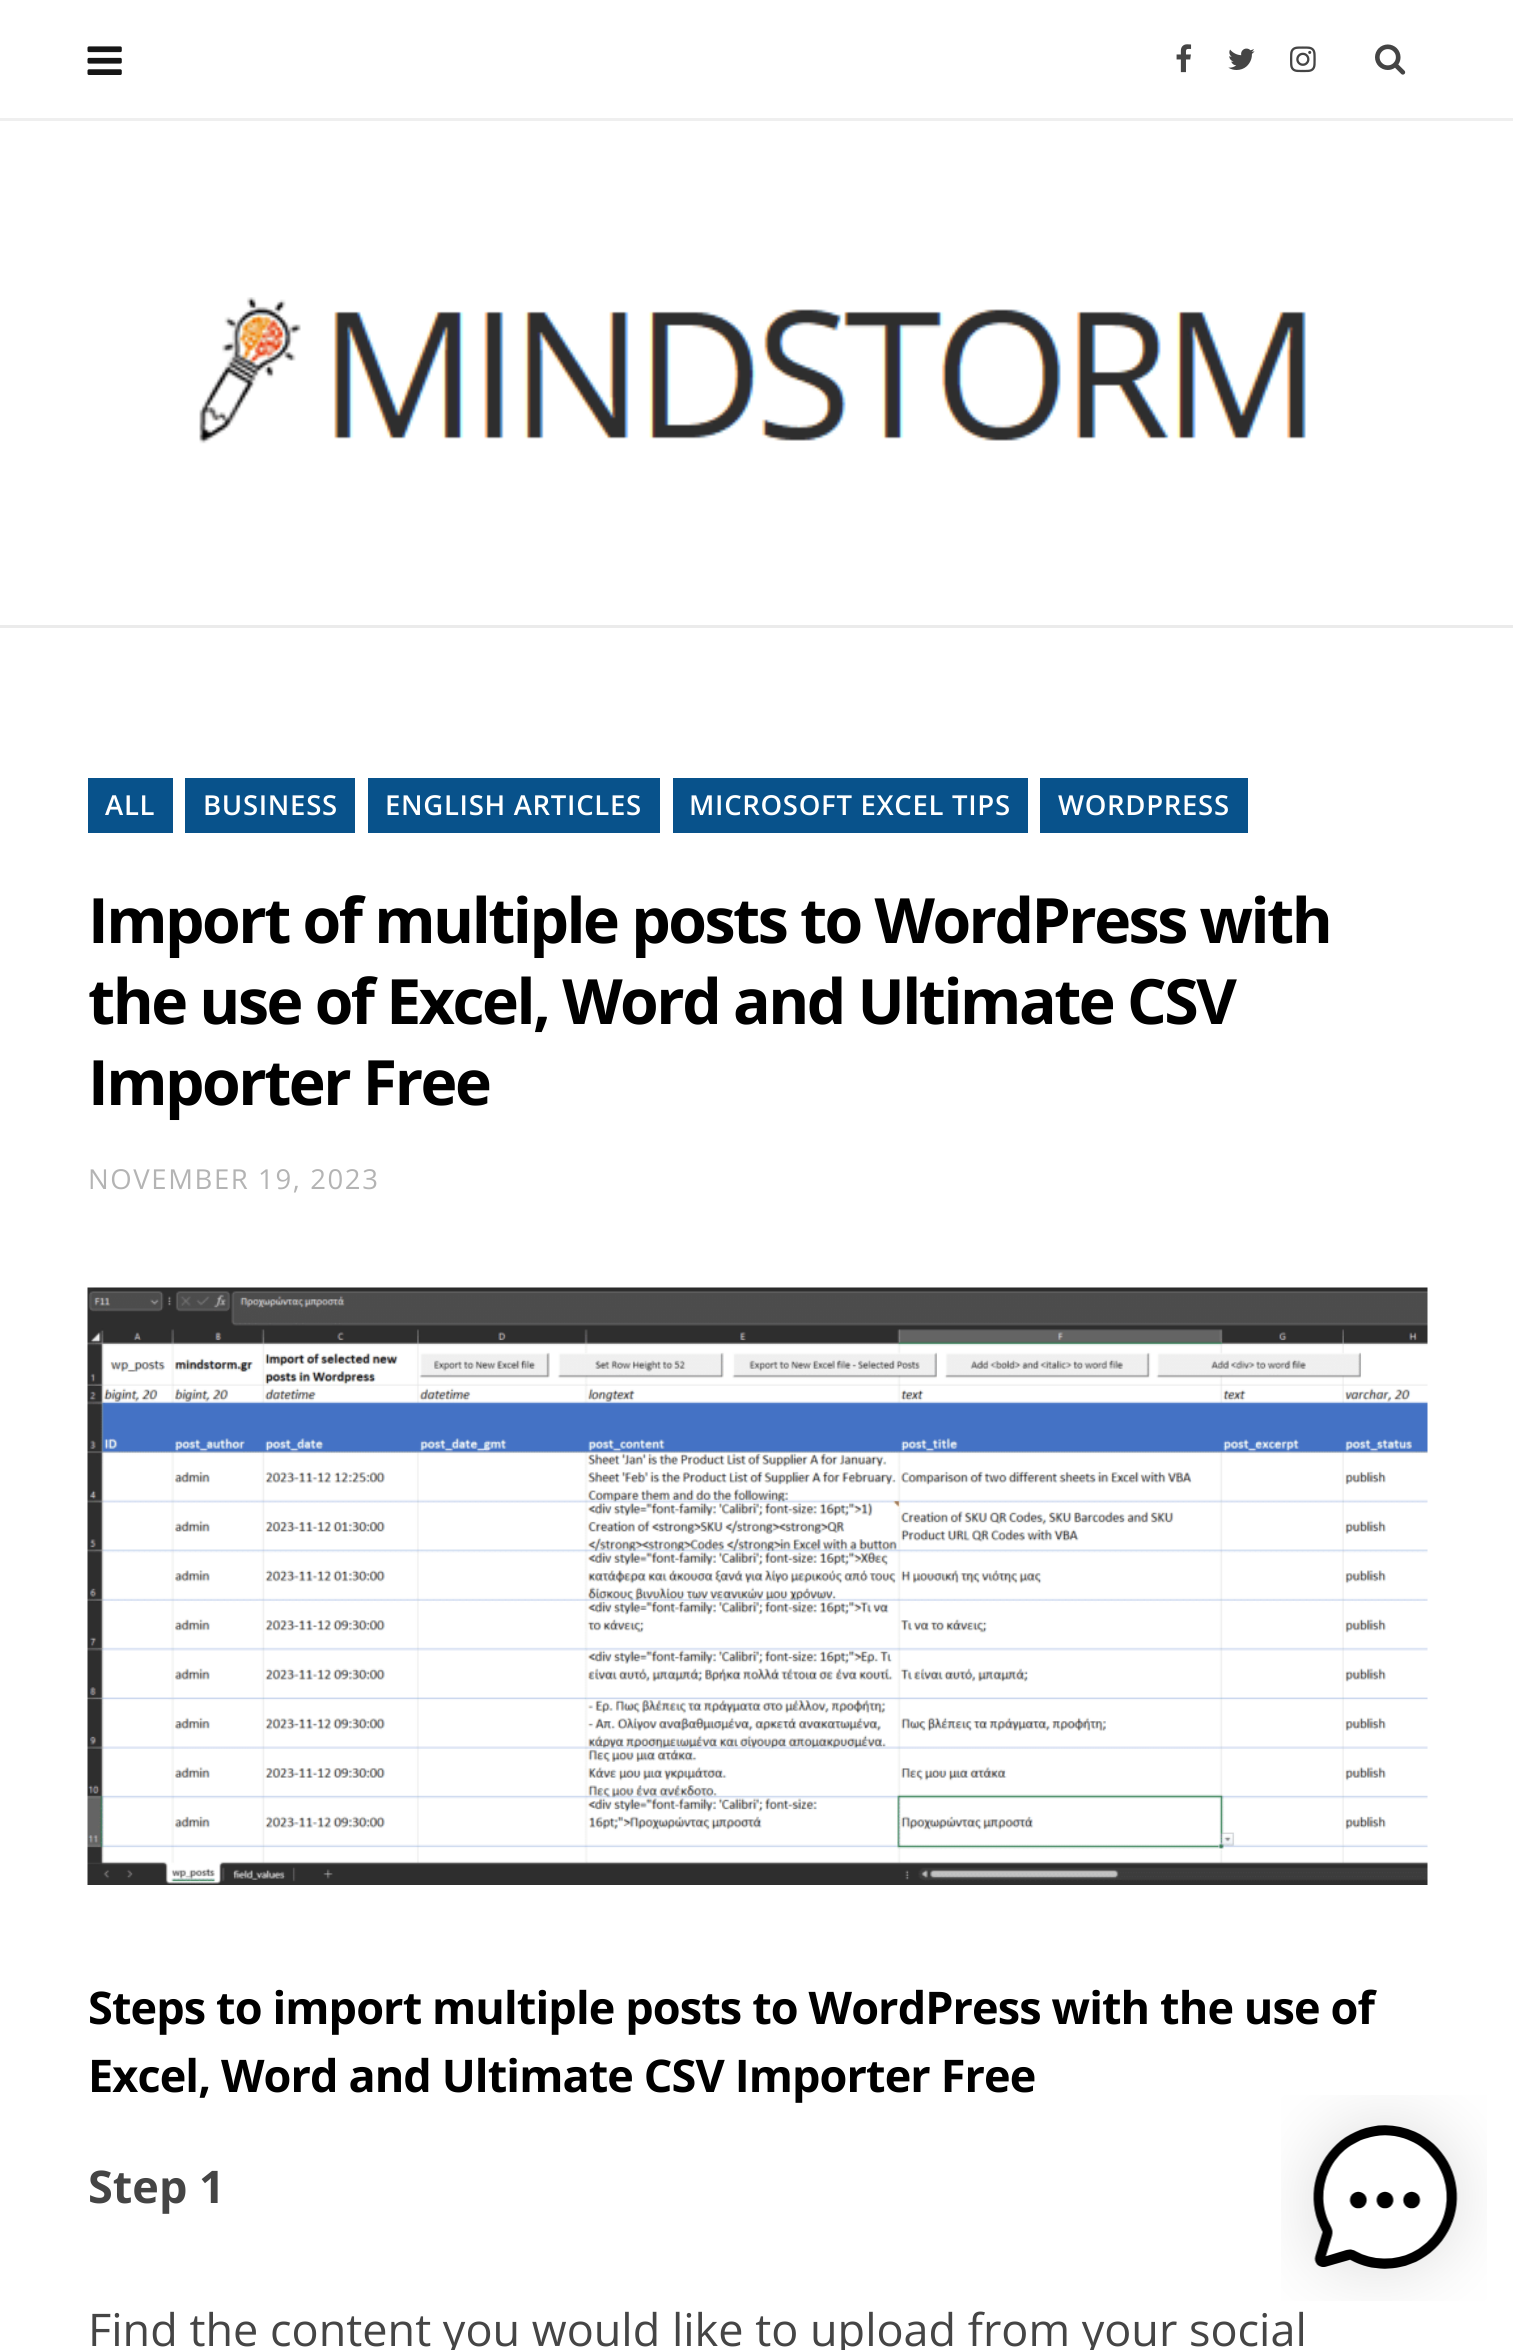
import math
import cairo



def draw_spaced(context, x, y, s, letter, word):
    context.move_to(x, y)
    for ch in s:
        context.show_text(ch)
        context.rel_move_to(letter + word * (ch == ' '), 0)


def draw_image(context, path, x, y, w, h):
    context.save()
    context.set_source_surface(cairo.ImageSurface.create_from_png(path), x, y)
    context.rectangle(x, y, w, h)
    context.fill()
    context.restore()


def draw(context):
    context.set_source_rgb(1, 1, 1)
    context.paint()
    context.set_source_rgb(235 / 255, 235 / 255, 235 / 255)
    context.rectangle(0, 625, 1513, 3)
    context.fill()
    context.set_source_rgb(239 / 255, 239 / 255, 239 / 255)
    context.rectangle(0, 118, 1513, 3)
    context.fill()
    draw_image(context, "images/1.png", 87, 46, 35, 29)
    draw_image(context, "images/2.png", 1176, 44, 16, 29)
    draw_image(context, "images/3.png", 1228, 48, 27, 22)
    draw_image(context, "images/4.png", 1290, 46, 26, 27)
    draw_image(context, "images/5.png", 1375, 44, 31, 31)
    draw_image(context, "images/6.png", 199, 297, 1107, 147)
    context.set_source_rgb(8 / 255, 82 / 255, 139 / 255)
    context.rectangle(88, 778, 85, 55)
    context.fill()
    context.rectangle(185, 778, 170, 55)
    context.fill()
    context.rectangle(368, 778, 292, 55)
    context.fill()
    context.rectangle(673, 778, 355, 55)
    context.fill()
    context.rectangle(1040, 778, 208, 55)
    context.fill()
    draw_image(context, "images/7.png", 87, 1287, 1341, 598)
    draw_image(context, "images/8.png", 1281, 2095, 206, 206)
    context.select_font_face("Open Sans SemiBold")
    context.set_font_size(27.5)
    context.set_source_rgb(1, 1, 1)
    draw_spaced(context, 105, 815, "ALL", 0.7, 0)
    draw_spaced(context, 203, 815, "BUSINESS", 0.7, 0)
    draw_spaced(context, 385, 815, "ENGLISH ARTICLES", 0.7, 0)
    draw_spaced(context, 689, 815, "MICROSOFT EXCEL TIPS", 0.7, 0)
    draw_spaced(context, 1058, 815, "WORDPRESS", 0.7, 0)
    context.select_font_face("Open Sans", cairo.FontSlant.NORMAL, cairo.FontWeight.BOLD)
    context.set_font_size(62.5)
    context.set_source_rgb(0, 0, 0)
    draw_spaced(context, 88, 943, "Import of multiple posts to WordPress with", -2.5, 0)
    draw_spaced(context, 88, 1024, "the use of Excel, Word and Ultimate CSV", -2.5, 0)
    draw_spaced(context, 88, 1105, "Importer Free", -2.5, 0)
    context.select_font_face("Open Sans")
    context.set_font_size(27.5)
    context.set_source_rgb(180 / 255, 180 / 255, 180 / 255)
    draw_spaced(context, 88, 1189, "NOVEMBER 19, 2023", 1.6, 0)
    context.select_font_face("Open Sans", cairo.FontSlant.NORMAL, cairo.FontWeight.BOLD)
    context.set_font_size(45)
    context.set_source_rgb(0, 0, 0)
    draw_spaced(context, 88, 2024, "Steps to import multiple posts to WordPress with the use of", -0.9, 0)
    draw_spaced(context, 88, 2092, "Excel, Word and Ultimate CSV Importer Free", -0.9, 0)
    context.set_source_rgb(69 / 255, 69 / 255, 69 / 255)
    context.move_to(88, 2203)
    context.show_text("Step 1")
    context.select_font_face("Open Sans")
    context.move_to(88, 2346)
    context.show_text("Find the content you would like to upload from your social")


surface = cairo.ImageSurface(cairo.Format.RGB24, 1513, 2350)
context = cairo.Context(surface)
options = cairo.FontOptions()
options.set_hint_metrics(cairo.HintMetrics.OFF)
options.set_hint_style(cairo.HintStyle.NONE)
context.set_font_options(options)
context.set_miter_limit(4)
draw(context)
surface.write_to_png("out.png")
